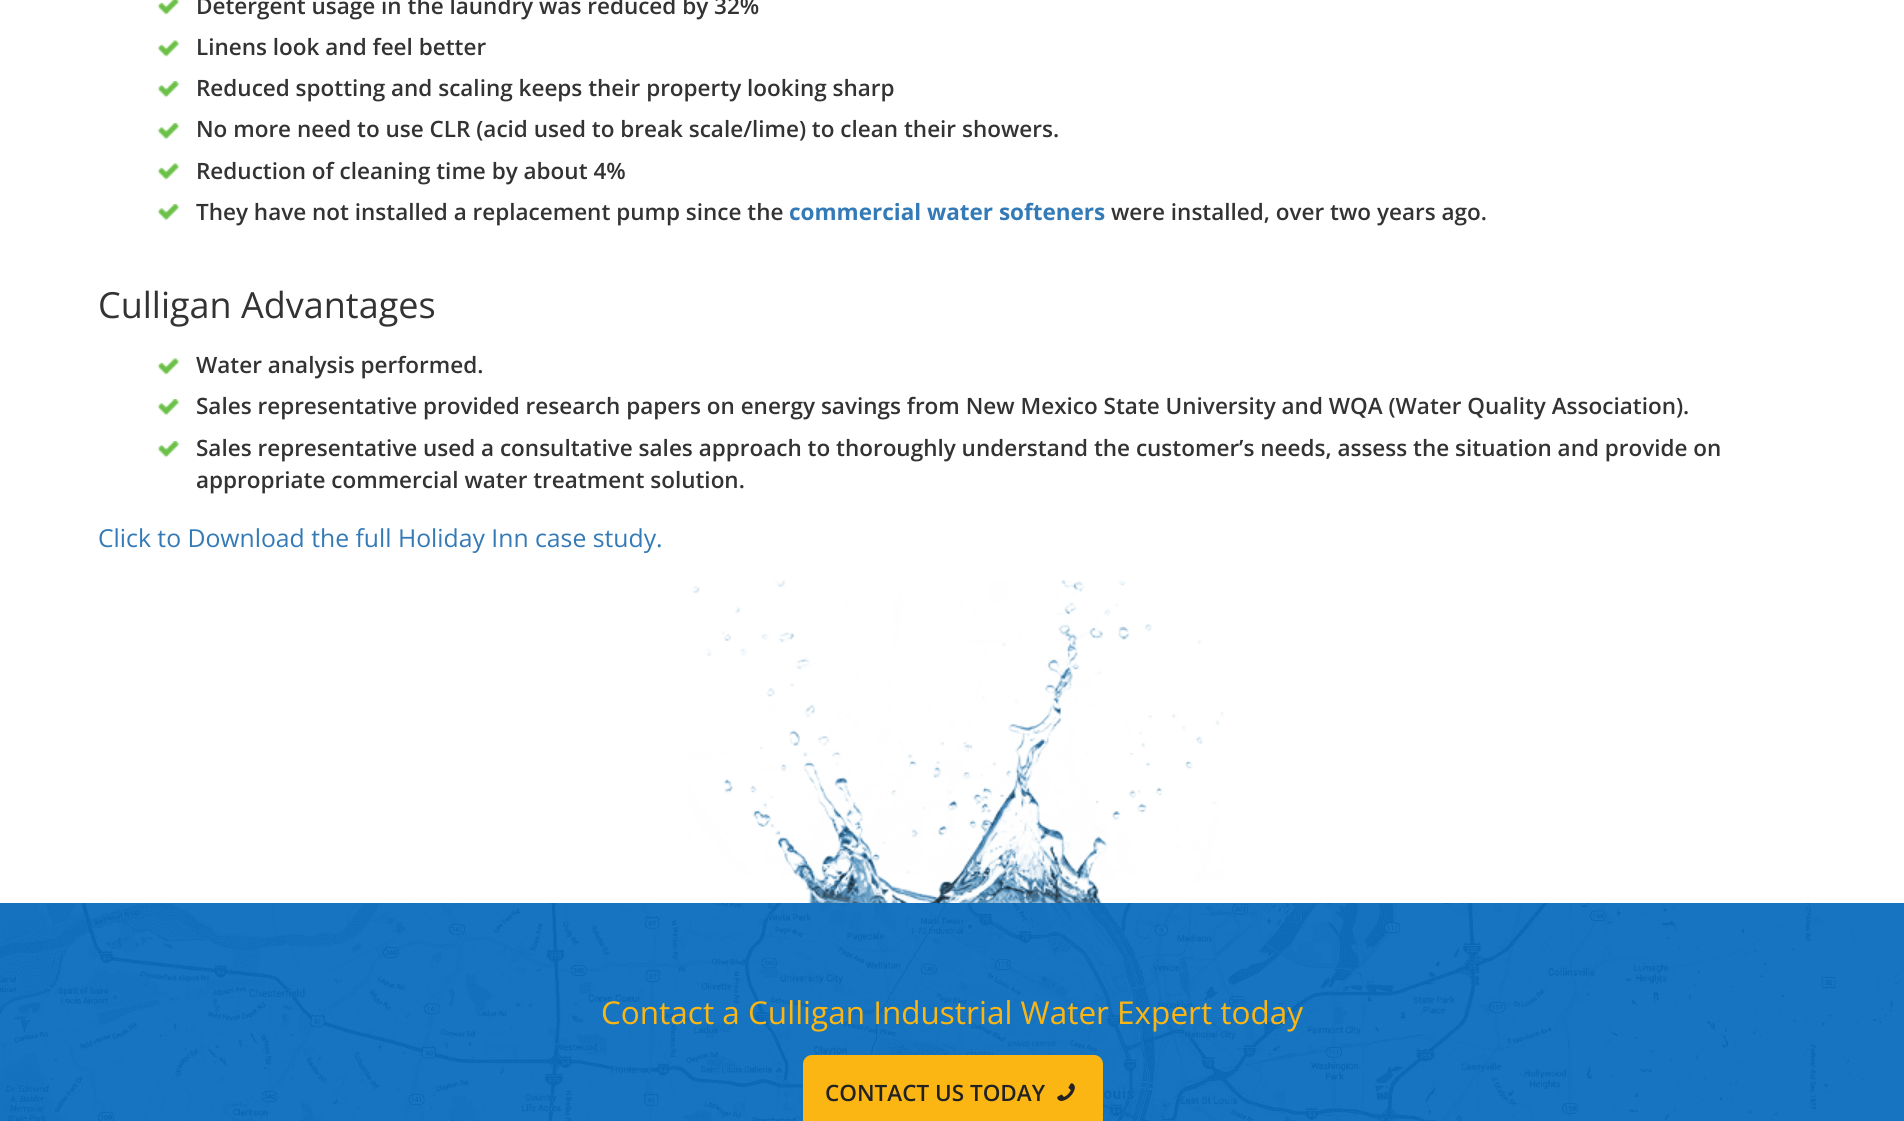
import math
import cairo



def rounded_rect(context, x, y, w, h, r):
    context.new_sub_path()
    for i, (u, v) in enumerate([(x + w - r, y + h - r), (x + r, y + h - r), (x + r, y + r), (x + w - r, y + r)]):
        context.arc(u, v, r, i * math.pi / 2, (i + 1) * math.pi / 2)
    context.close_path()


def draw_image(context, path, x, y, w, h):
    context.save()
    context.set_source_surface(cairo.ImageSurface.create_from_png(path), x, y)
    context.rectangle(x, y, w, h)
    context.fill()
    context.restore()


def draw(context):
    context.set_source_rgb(1, 1, 1)
    context.paint()
    draw_image(context, "images/1.png", 157, 0, 22, 15)
    draw_image(context, "images/2.png", 157, 40, 22, 17)
    draw_image(context, "images/3.png", 157, 81, 22, 17)
    draw_image(context, "images/3.png", 157, 123, 22, 17)
    draw_image(context, "images/2.png", 157, 163, 22, 17)
    draw_image(context, "images/3.png", 157, 204, 22, 17)
    draw_image(context, "images/2.png", 157, 358, 22, 17)
    draw_image(context, "images/3.png", 157, 399, 22, 17)
    draw_image(context, "images/3.png", 157, 441, 22, 17)
    draw_image(context, "images/4.png", 679, 580, 545, 323)
    draw_image(context, "images/5.png", 0, 903, 1904, 218)
    context.set_source_rgb(251 / 255, 182 / 255, 19 / 255)
    rounded_rect(context, 803, 1055, 300, 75, 9)
    context.fill()
    draw_image(context, "images/6.png", 1057, 1083, 18, 18)
    context.select_font_face("Open Sans SemiBold")
    context.set_font_size(22.5)
    context.set_source_rgb(51 / 255, 51 / 255, 51 / 255)
    context.move_to(196, 14)
    context.show_text("Detergent usage in the laundry was reduced by 32%")
    context.move_to(196, 55)
    context.show_text("Linens look and feel better")
    context.move_to(196, 96)
    context.show_text("Reduced spotting and scaling keeps their property looking sharp")
    context.move_to(196, 137)
    context.show_text("No more need to use CLR (acid used to break scale/lime) to clean their showers.")
    context.move_to(196, 179)
    context.show_text("Reduction of cleaning time by about 4%")
    context.move_to(196, 220)
    context.show_text("They have not installed a replacement pump since the")
    context.select_font_face("Open Sans", cairo.FontSlant.NORMAL, cairo.FontWeight.BOLD)
    context.set_source_rgb(51 / 255, 122 / 255, 183 / 255)
    context.move_to(789, 220)
    context.show_text("commercial water softeners")
    context.select_font_face("Open Sans SemiBold")
    context.set_source_rgb(51 / 255, 51 / 255, 51 / 255)
    context.move_to(1111, 220)
    context.show_text("were installed, over two years ago.")
    context.select_font_face("Open Sans")
    context.set_font_size(36)
    context.move_to(98, 318)
    context.show_text("Culligan Advantages")
    context.select_font_face("Open Sans SemiBold")
    context.set_font_size(22.5)
    context.move_to(196, 373)
    context.show_text("Water analysis performed.")
    context.move_to(196, 414)
    context.show_text("Sales representative provided research papers on energy savings from New Mexico State University and WQA (Water Quality Association).")
    context.move_to(196, 456)
    context.show_text("Sales representative used a consultative sales approach to thoroughly understand the customer’s needs, assess the situation and provide on")
    context.move_to(196, 488)
    context.show_text("appropriate commercial water treatment solution.")
    context.select_font_face("Open Sans")
    context.set_font_size(24.75)
    context.set_source_rgb(51 / 255, 122 / 255, 183 / 255)
    context.move_to(98, 547)
    context.show_text("Click to Download the full Holiday Inn case study.")
    context.set_font_size(31.5)
    context.set_source_rgb(251 / 255, 182 / 255, 19 / 255)
    context.move_to(601, 1024)
    context.show_text("Contact a Culligan Industrial Water Expert today")
    context.select_font_face("Open Sans SemiBold")
    context.set_font_size(22.5)
    context.set_source_rgb(34 / 255, 34 / 255, 34 / 255)
    context.move_to(825, 1101)
    context.show_text("CONTACT US TODAY")


surface = cairo.ImageSurface(cairo.Format.RGB24, 1904, 1121)
context = cairo.Context(surface)
options = cairo.FontOptions()
options.set_hint_metrics(cairo.HintMetrics.OFF)
options.set_hint_style(cairo.HintStyle.NONE)
context.set_font_options(options)
context.set_miter_limit(4)
draw(context)
surface.write_to_png("out.png")
